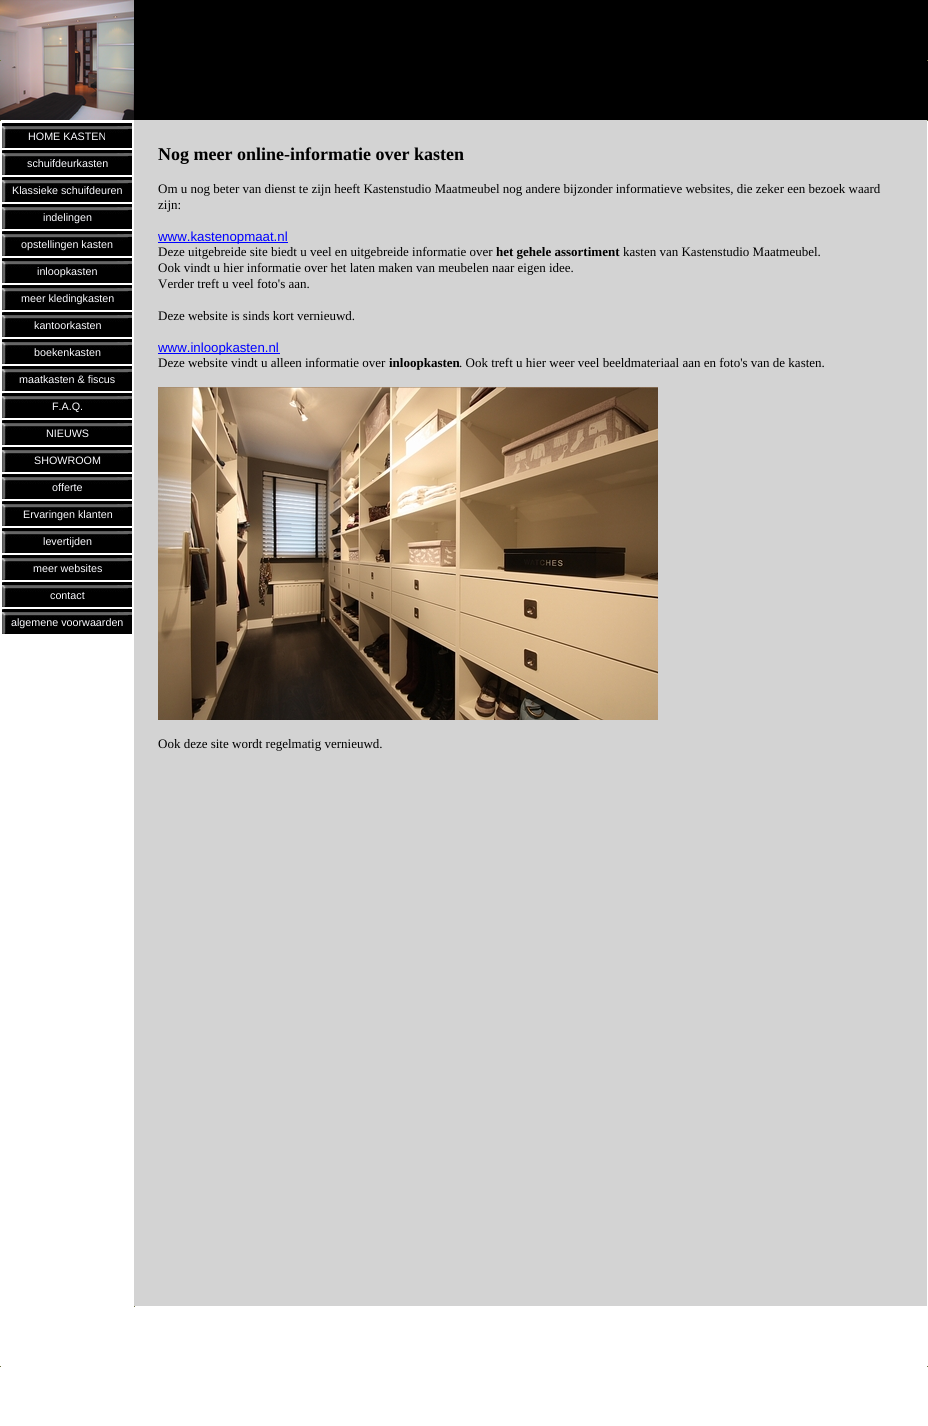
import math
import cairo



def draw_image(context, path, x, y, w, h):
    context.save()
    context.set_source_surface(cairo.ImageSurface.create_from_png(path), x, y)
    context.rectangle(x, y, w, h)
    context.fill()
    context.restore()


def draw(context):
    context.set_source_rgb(1, 1, 1)
    context.paint()
    draw_image(context, "images/1.png", 0, 0, 134, 120)
    context.set_source_rgb(110 / 255, 113 / 255, 64 / 255)
    context.rectangle(0, 60, 1, 1)
    context.fill()
    context.set_source_rgb(0, 0, 0)
    context.rectangle(134, 0, 794, 120)
    context.fill()
    context.set_source_rgb(110 / 255, 113 / 255, 64 / 255)
    context.rectangle(927, 60, 1, 1)
    context.fill()
    context.rectangle(927, 120, 1, 1)
    context.fill()
    context.rectangle(0, 120, 1, 1)
    context.fill()
    draw_image(context, "images/2.png", 2, 123, 130, 25)
    draw_image(context, "images/2.png", 2, 150, 130, 25)
    draw_image(context, "images/2.png", 2, 177, 130, 25)
    draw_image(context, "images/2.png", 2, 204, 130, 25)
    draw_image(context, "images/2.png", 2, 231, 130, 25)
    draw_image(context, "images/2.png", 2, 258, 130, 25)
    draw_image(context, "images/2.png", 2, 285, 130, 25)
    draw_image(context, "images/2.png", 2, 312, 130, 25)
    draw_image(context, "images/2.png", 2, 339, 130, 25)
    draw_image(context, "images/2.png", 2, 366, 130, 25)
    draw_image(context, "images/2.png", 2, 393, 130, 25)
    draw_image(context, "images/2.png", 2, 420, 130, 25)
    draw_image(context, "images/2.png", 2, 447, 130, 25)
    draw_image(context, "images/2.png", 2, 474, 130, 25)
    draw_image(context, "images/2.png", 2, 501, 130, 25)
    draw_image(context, "images/2.png", 2, 528, 130, 25)
    draw_image(context, "images/2.png", 2, 555, 130, 25)
    draw_image(context, "images/2.png", 2, 582, 130, 25)
    draw_image(context, "images/2.png", 2, 609, 130, 25)
    context.set_source_rgb(211 / 255, 211 / 255, 211 / 255)
    context.rectangle(134, 120, 793, 1186)
    context.fill()
    context.set_source_rgb(0, 0, 1)
    context.rectangle(158, 242, 130, 1)
    context.fill()
    context.rectangle(158, 353, 122, 1)
    context.fill()
    draw_image(context, "images/3.png", 158, 387, 500, 333)
    context.set_source_rgb(110 / 255, 113 / 255, 64 / 255)
    context.rectangle(134, 1306, 1, 1)
    context.fill()
    context.rectangle(0, 1366, 1, 1)
    context.fill()
    context.rectangle(927, 1366, 1, 1)
    context.fill()
    context.select_font_face("Liberation Sans")
    context.set_font_size(10.75)
    context.set_source_rgb(251 / 255, 251 / 255, 1)
    context.move_to(28, 140)
    context.show_text("HOME KASTEN")
    context.move_to(27, 167)
    context.show_text("schuifdeurkasten")
    context.move_to(12, 194)
    context.show_text("Klassieke schuifdeuren")
    context.move_to(43, 221)
    context.show_text("indelingen")
    context.move_to(21, 248)
    context.show_text("opstellingen kasten")
    context.move_to(37, 275)
    context.show_text("inloopkasten")
    context.move_to(21, 302)
    context.show_text("meer kledingkasten")
    context.move_to(34, 329)
    context.show_text("kantoorkasten")
    context.move_to(34, 356)
    context.show_text("boekenkasten")
    context.move_to(19, 383)
    context.show_text("maatkasten & fiscus")
    context.move_to(52, 410)
    context.show_text("F.A.Q.")
    context.move_to(46, 437)
    context.show_text("NIEUWS")
    context.move_to(34, 464)
    context.show_text("SHOWROOM")
    context.move_to(52, 491)
    context.show_text("offerte")
    context.move_to(23, 518)
    context.show_text("Ervaringen klanten")
    context.move_to(43, 545)
    context.show_text("levertijden")
    context.move_to(33, 572)
    context.show_text("meer websites")
    context.move_to(50, 599)
    context.show_text("contact")
    context.move_to(11, 626)
    context.show_text("algemene voorwaarden")
    context.select_font_face("Liberation Serif", cairo.FontSlant.NORMAL, cairo.FontWeight.BOLD)
    context.set_font_size(18)
    context.set_source_rgb(0, 0, 0)
    context.move_to(158, 160)
    context.show_text("Nog meer online-informatie over kasten")
    context.select_font_face("Liberation Serif")
    context.set_font_size(13)
    context.move_to(158, 193)
    context.show_text("Om u nog beter van dienst te zijn heeft Kastenstudio Maatmeubel nog andere bijzonder informatieve websites, die zeker een bezoek waard")
    context.move_to(158, 209)
    context.show_text("zijn:")
    context.select_font_face("Liberation Sans")
    context.set_font_size(13.25)
    context.set_source_rgb(0, 0, 1)
    context.move_to(158, 241)
    context.show_text("www.kastenopmaat.nl")
    context.select_font_face("Liberation Serif")
    context.set_font_size(13)
    context.set_source_rgb(0, 0, 0)
    context.move_to(158, 256)
    context.show_text("Deze uitgebreide site biedt u veel en uitgebreide informatie over")
    context.select_font_face("Liberation Serif", cairo.FontSlant.NORMAL, cairo.FontWeight.BOLD)
    context.move_to(496, 256)
    context.show_text("het gehele assortiment")
    context.select_font_face("Liberation Serif")
    context.move_to(623, 256)
    context.show_text("kasten van Kastenstudio Maatmeubel.")
    context.move_to(158, 272)
    context.show_text("Ook vindt u hier informatie over het laten maken van meubelen naar eigen idee.")
    context.move_to(158, 288)
    context.show_text("Verder treft u veel foto's aan.")
    context.move_to(158, 320)
    context.show_text("Deze website is sinds kort vernieuwd.")
    context.select_font_face("Liberation Sans")
    context.set_font_size(13.25)
    context.set_source_rgb(0, 0, 1)
    context.move_to(158, 352)
    context.show_text("www.inloopkasten.nl")
    context.select_font_face("Liberation Serif")
    context.set_font_size(13)
    context.set_source_rgb(0, 0, 0)
    context.move_to(158, 367)
    context.show_text("Deze website vindt u alleen informatie over")
    context.select_font_face("Liberation Serif", cairo.FontSlant.NORMAL, cairo.FontWeight.BOLD)
    context.move_to(389, 367)
    context.show_text("inloopkasten")
    context.select_font_face("Liberation Serif")
    context.move_to(459, 367)
    context.show_text(". Ook treft u hier weer veel beeldmateriaal aan en foto's van de kasten.")
    context.move_to(158, 748)
    context.show_text("Ook deze site wordt regelmatig vernieuwd.")


surface = cairo.ImageSurface(cairo.Format.RGB24, 928, 1426)
context = cairo.Context(surface)
options = cairo.FontOptions()
options.set_hint_metrics(cairo.HintMetrics.OFF)
options.set_hint_style(cairo.HintStyle.NONE)
context.set_font_options(options)
context.set_miter_limit(4)
draw(context)
surface.write_to_png("out.png")
